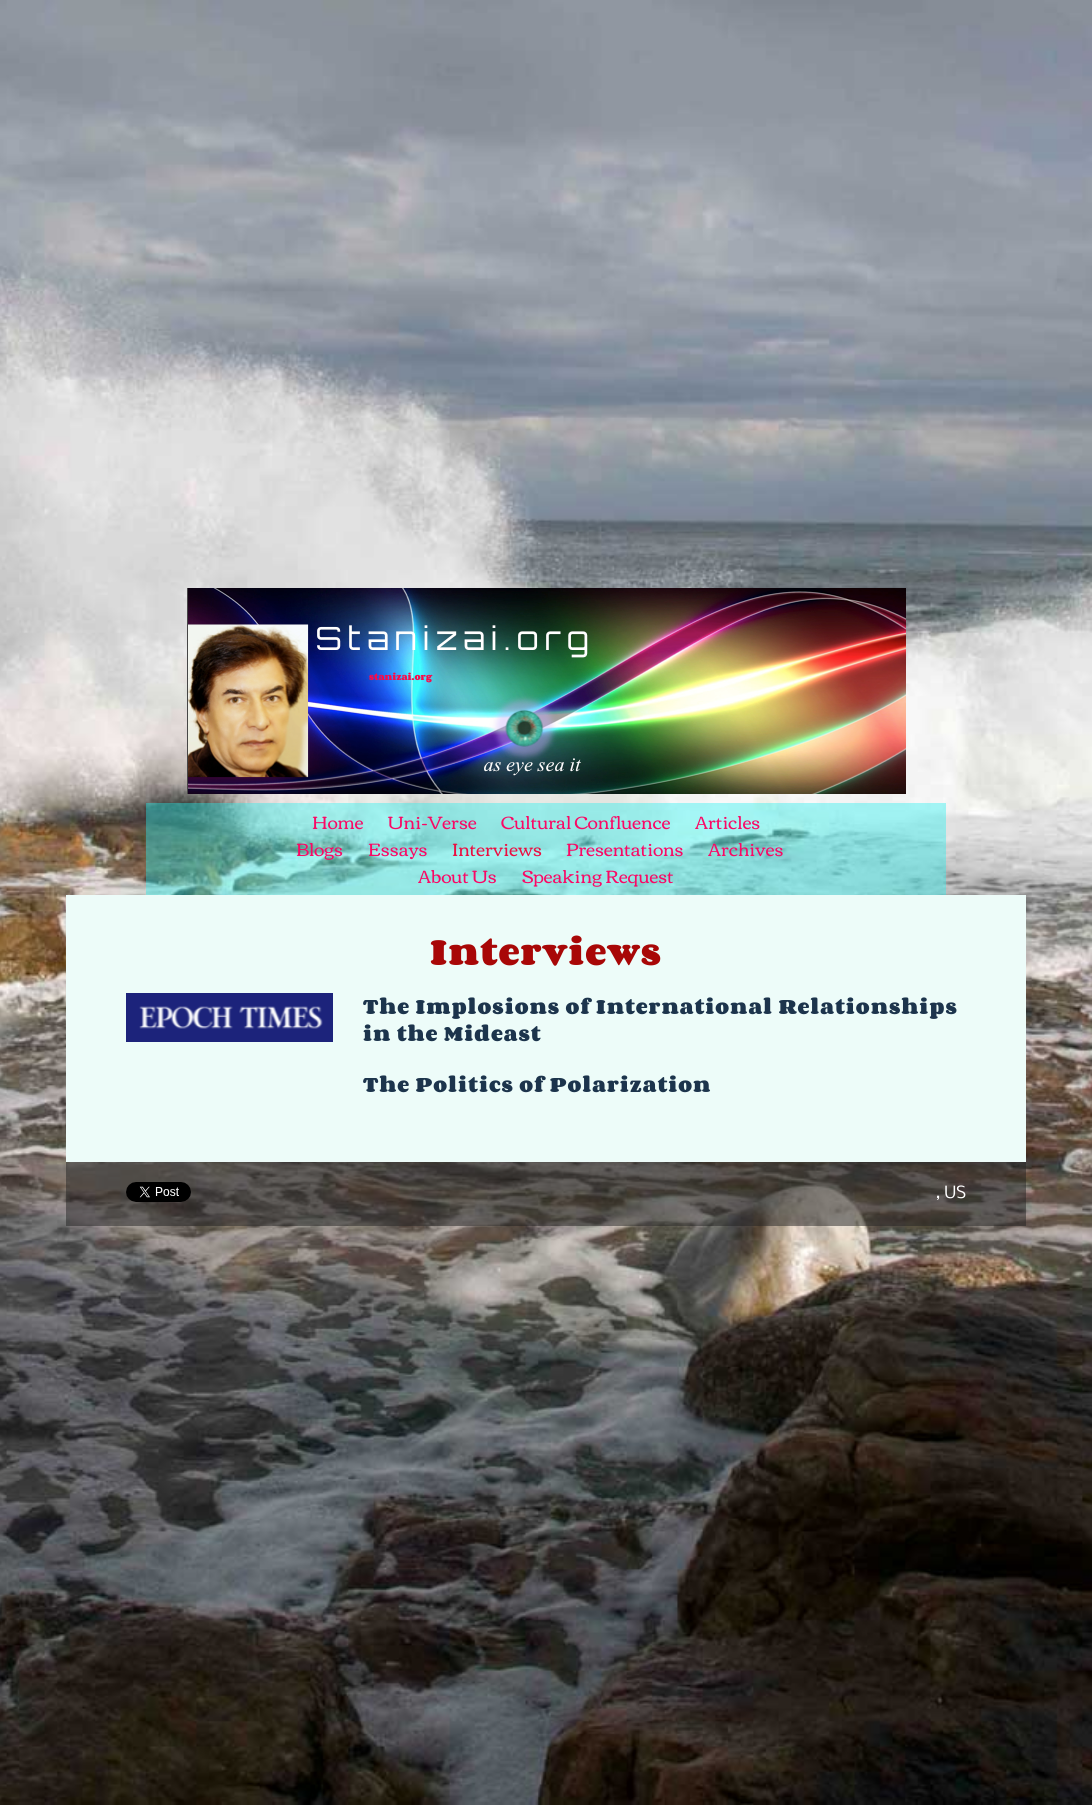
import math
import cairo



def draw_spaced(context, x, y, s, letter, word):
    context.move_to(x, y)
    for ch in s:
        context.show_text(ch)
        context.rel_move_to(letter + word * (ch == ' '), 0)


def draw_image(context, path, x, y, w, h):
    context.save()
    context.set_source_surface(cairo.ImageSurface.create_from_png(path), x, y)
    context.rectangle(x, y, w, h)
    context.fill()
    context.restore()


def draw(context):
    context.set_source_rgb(1, 1, 1)
    context.paint()
    draw_image(context, "images/1.png", 0, 0, 1092, 1805)
    draw_image(context, "images/2.png", 187, 588, 719, 206)
    context.set_source_rgba(36 / 255, 240 / 255, 240 / 255, 0.4)
    context.rectangle(146, 803, 800, 92)
    context.fill()
    context.set_source_rgb(237 / 255, 252 / 255, 249 / 255)
    context.rectangle(66, 895, 960, 267)
    context.fill()
    draw_image(context, "images/3.png", 126, 993, 207, 49)
    context.set_source_rgba(34 / 255, 34 / 255, 34 / 255, 0.5)
    context.rectangle(66, 1162, 960, 64)
    context.fill()
    draw_image(context, "images/4.png", 126, 1182, 65, 20)
    context.select_font_face("Corben", cairo.FontSlant.NORMAL, cairo.FontWeight.BOLD)
    context.set_font_size(8)
    context.set_source_rgb(250 / 255, 10 / 255, 74 / 255)
    context.move_to(369, 680)
    context.show_text("stanizai.org")
    context.select_font_face("Corben")
    context.set_font_size(18)
    context.set_source_rgb(250 / 255, 8 / 255, 101 / 255)
    context.move_to(312, 829)
    context.show_text("Home")
    context.move_to(388, 829)
    context.show_text("Uni-Verse")
    context.move_to(501, 829)
    context.show_text("Cultural Confluence")
    context.move_to(695, 829)
    context.show_text("Articles")
    context.move_to(296, 856)
    context.show_text("Blogs")
    context.move_to(368, 856)
    context.show_text("Essays")
    context.set_source_rgb(235 / 255, 14 / 255, 65 / 255)
    context.move_to(452, 856)
    context.show_text("Interviews")
    context.set_source_rgb(250 / 255, 8 / 255, 101 / 255)
    context.move_to(566, 856)
    context.show_text("Presentations")
    context.move_to(708, 856)
    context.show_text("Archives")
    context.move_to(418, 883)
    context.show_text("About Us")
    context.move_to(522, 883)
    context.show_text("Speaking Request")
    context.select_font_face("Corben", cairo.FontSlant.NORMAL, cairo.FontWeight.BOLD)
    context.set_font_size(32)
    context.set_source_rgb(168 / 255, 7 / 255, 7 / 255)
    draw_spaced(context, 430, 965, "Interviews", 1, 0)
    context.save()
    context.rectangle(363, 993, 603, 129)
    context.clip()
    context.set_font_size(18)
    context.set_source_rgb(28 / 255, 52 / 255, 76 / 255)
    draw_spaced(context, 363, 1014, "The Implosions of International Relationships", 1, 0)
    context.restore()
    context.set_font_size(18)
    context.set_source_rgb(28 / 255, 52 / 255, 76 / 255)
    draw_spaced(context, 363, 1041, "in the Mideast", 1, 0)
    context.save()
    context.rectangle(363, 993, 603, 129)
    context.clip()
    draw_spaced(context, 363, 1092, "The Politics of Polarization", 1, 0)
    context.restore()
    context.select_font_face("Nobile")
    context.set_font_size(16)
    context.set_source_rgb(1, 1, 1)
    context.move_to(936, 1198)
    context.show_text(", US")


surface = cairo.ImageSurface(cairo.Format.RGB24, 1092, 1805)
context = cairo.Context(surface)
options = cairo.FontOptions()
options.set_hint_metrics(cairo.HintMetrics.OFF)
options.set_hint_style(cairo.HintStyle.NONE)
context.set_font_options(options)
context.set_miter_limit(4)
draw(context)
surface.write_to_png("out.png")
